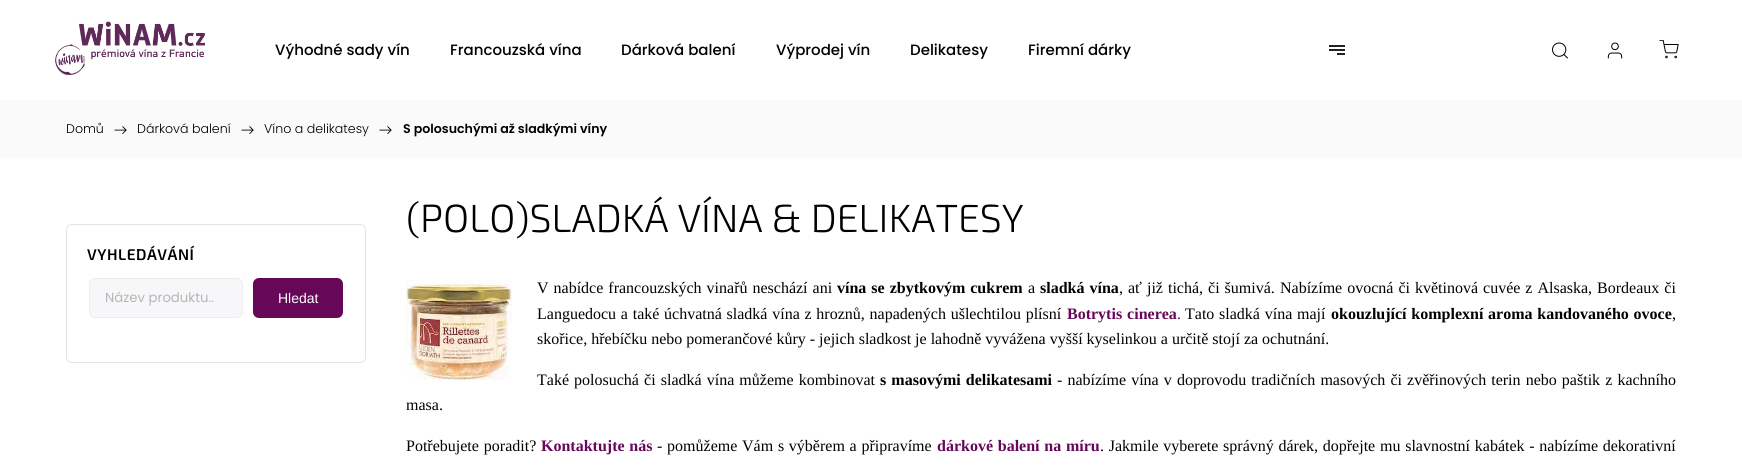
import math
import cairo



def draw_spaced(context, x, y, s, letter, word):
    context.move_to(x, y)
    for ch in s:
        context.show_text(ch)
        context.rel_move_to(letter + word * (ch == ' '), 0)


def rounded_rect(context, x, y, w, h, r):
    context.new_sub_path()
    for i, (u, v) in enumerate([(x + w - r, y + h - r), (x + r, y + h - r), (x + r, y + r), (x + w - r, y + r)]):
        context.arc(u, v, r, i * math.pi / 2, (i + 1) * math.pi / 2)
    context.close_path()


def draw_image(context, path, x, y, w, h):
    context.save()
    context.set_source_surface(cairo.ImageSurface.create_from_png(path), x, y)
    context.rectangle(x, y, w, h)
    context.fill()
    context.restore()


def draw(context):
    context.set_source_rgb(1, 1, 1)
    context.paint()
    draw_image(context, "images/1.png", 55, 21, 150, 54)
    draw_image(context, "images/2.png", 1552, 42, 16, 17)
    draw_image(context, "images/3.png", 1607, 42, 16, 17)
    draw_image(context, "images/4.png", 1659, 40, 20, 19)
    draw_image(context, "images/5.png", 1329, 45, 16, 10)
    context.set_source_rgb(250 / 255, 250 / 255, 250 / 255)
    context.rectangle(0, 100, 1742, 58)
    context.fill()
    draw_image(context, "images/6.png", 114, 126, 13, 8)
    draw_image(context, "images/6.png", 241, 126, 13, 8)
    draw_image(context, "images/6.png", 379, 126, 13, 8)
    rounded_rect(context, 66.5, 224.5, 299, 138, 5.5)
    context.set_source_rgb(228 / 255, 228 / 255, 228 / 255)
    context.set_line_width(1)
    context.stroke()
    context.set_source_rgb(247 / 255, 247 / 255, 249 / 255)
    rounded_rect(context, 89.5, 278.5, 153, 39, 5.5)
    context.fill_preserve()
    context.set_source_rgb(237 / 255, 237 / 255, 237 / 255)
    context.stroke()
    context.set_source_rgb(102 / 255, 7 / 255, 88 / 255)
    rounded_rect(context, 253, 278, 90, 40, 6)
    context.fill()
    draw_image(context, "images/7.png", 406, 280, 106, 100)
    context.select_font_face("Poppins Medium")
    context.set_font_size(15)
    context.set_source_rgb(0, 0, 0)
    context.move_to(275, 55)
    context.show_text("Výhodné sady vín")
    context.move_to(450, 55)
    context.show_text("Francouzská vína")
    context.move_to(621, 55)
    context.show_text("Dárková balení")
    context.move_to(776, 55)
    context.show_text("Výprodej vín")
    context.move_to(910, 55)
    context.show_text("Delikatesy")
    context.move_to(1028, 55)
    context.show_text("Firemní dárky")
    context.select_font_face("Poppins Light")
    context.set_font_size(12.6)
    context.move_to(66, 133)
    context.show_text("Domů")
    context.move_to(137, 133)
    context.show_text("Dárková balení")
    context.move_to(264, 133)
    context.show_text("Víno a delikatesy")
    context.select_font_face("Poppins SemiBold")
    context.move_to(403, 133)
    context.show_text("S polosuchými až sladkými víny")
    context.select_font_face("Exo 2 SemiBold")
    context.set_font_size(15.5)
    draw_spaced(context, 87, 260, "VYHLEDÁVÁNÍ", 0.5, 0)
    context.select_font_face("Poppins")
    context.set_font_size(13.25)
    context.set_source_rgb(182 / 255, 182 / 255, 182 / 255)
    context.move_to(105, 302)
    context.show_text("Název produktu..")
    context.select_font_face("Liberation Sans")
    context.set_font_size(14)
    context.set_source_rgb(1, 1, 1)
    context.move_to(278, 303)
    context.show_text("Hledat")
    context.select_font_face("Exo 2 Light")
    context.set_font_size(39.25)
    context.set_source_rgb(0, 0, 0)
    context.move_to(406, 232)
    context.show_text("(POLO)SLADKÁ VÍNA & DELIKATESY")
    context.select_font_face("Liberation Serif")
    context.set_font_size(16)
    draw_spaced(context, 537, 293, "V nabídce francouzských vinařů neschází ani", 0, 1)
    context.select_font_face("Liberation Serif", cairo.FontSlant.NORMAL, cairo.FontWeight.BOLD)
    draw_spaced(context, 837, 293, "vína se zbytkovým cukrem", 0, 1)
    context.select_font_face("Liberation Serif")
    context.move_to(1028, 293)
    context.show_text("a")
    context.select_font_face("Liberation Serif", cairo.FontSlant.NORMAL, cairo.FontWeight.BOLD)
    draw_spaced(context, 1040, 293, "sladká vína", 0, 1)
    context.select_font_face("Liberation Serif")
    draw_spaced(context, 1119, 293, ", ať již tichá, či šumivá.", 0, 1)
    draw_spaced(context, 1280, 293, "Nabízíme ovocná či květinová cuvée z Alsaska, Bordeaux či", 0, 1)
    draw_spaced(context, 537, 319, "Languedocu a také úchvatná sladká vína z hroznů, napadených ušlechtilou plísní", 0, 0.75)
    context.select_font_face("Liberation Serif", cairo.FontSlant.NORMAL, cairo.FontWeight.BOLD)
    context.set_source_rgb(102 / 255, 7 / 255, 89 / 255)
    draw_spaced(context, 1067, 319, "Botrytis cinerea", 0, 1)
    context.select_font_face("Liberation Serif")
    context.move_to(1177, 319)
    context.show_text(".")
    context.set_source_rgb(0, 0, 0)
    draw_spaced(context, 1185, 319, "Tato sladká vína mají", 0, 0.75)
    context.select_font_face("Liberation Serif", cairo.FontSlant.NORMAL, cairo.FontWeight.BOLD)
    draw_spaced(context, 1331, 319, "okouzlující komplexní aroma kandovaného ovoce", 0, 0.75)
    context.select_font_face("Liberation Serif")
    context.move_to(1672, 319)
    context.show_text(",")
    context.move_to(537, 344)
    context.show_text("skořice, hřebíčku nebo pomerančové kůry - jejich sladkost je lahodně vyvážena vyšší kyselinkou a určitě stojí za ochutnání.")
    draw_spaced(context, 537, 385, "Také polosuchá či sladká vína můžeme kombinovat", 0, 1.1)
    context.select_font_face("Liberation Serif", cairo.FontSlant.NORMAL, cairo.FontWeight.BOLD)
    draw_spaced(context, 880, 385, "s masovými delikatesami", 0, 1.1)
    context.select_font_face("Liberation Serif")
    draw_spaced(context, 1057, 385, "- nabízíme vína v doprovodu tradičních masových či zvěřinových terin nebo paštik z kachního", 0, 1.1)
    context.move_to(406, 410)
    context.show_text("masa.")
    draw_spaced(context, 406, 451, "Potřebujete poradit?", 0, 1)
    context.select_font_face("Liberation Serif", cairo.FontSlant.NORMAL, cairo.FontWeight.BOLD)
    context.set_source_rgb(102 / 255, 7 / 255, 89 / 255)
    draw_spaced(context, 541, 451, "Kontaktujte nás", 0, 0.75)
    context.select_font_face("Liberation Serif")
    context.set_source_rgb(0, 0, 0)
    draw_spaced(context, 657, 451, "- pomůžeme Vám s výběrem a připravíme", 0, 0.75)
    context.select_font_face("Liberation Serif", cairo.FontSlant.NORMAL, cairo.FontWeight.BOLD)
    context.set_source_rgb(102 / 255, 7 / 255, 89 / 255)
    draw_spaced(context, 937, 451, "dárkové balení na míru", 0, 0.75)
    context.select_font_face("Liberation Serif")
    context.set_source_rgb(0, 0, 0)
    draw_spaced(context, 1100, 451, ". Jakmile vyberete správný dárek, dopřejte mu slavnostní kabátek - nabízíme dekorativní", 0, 0.75)


surface = cairo.ImageSurface(cairo.Format.RGB24, 1742, 465)
context = cairo.Context(surface)
options = cairo.FontOptions()
options.set_hint_metrics(cairo.HintMetrics.OFF)
options.set_hint_style(cairo.HintStyle.NONE)
context.set_font_options(options)
context.set_miter_limit(4)
draw(context)
surface.write_to_png("out.png")
